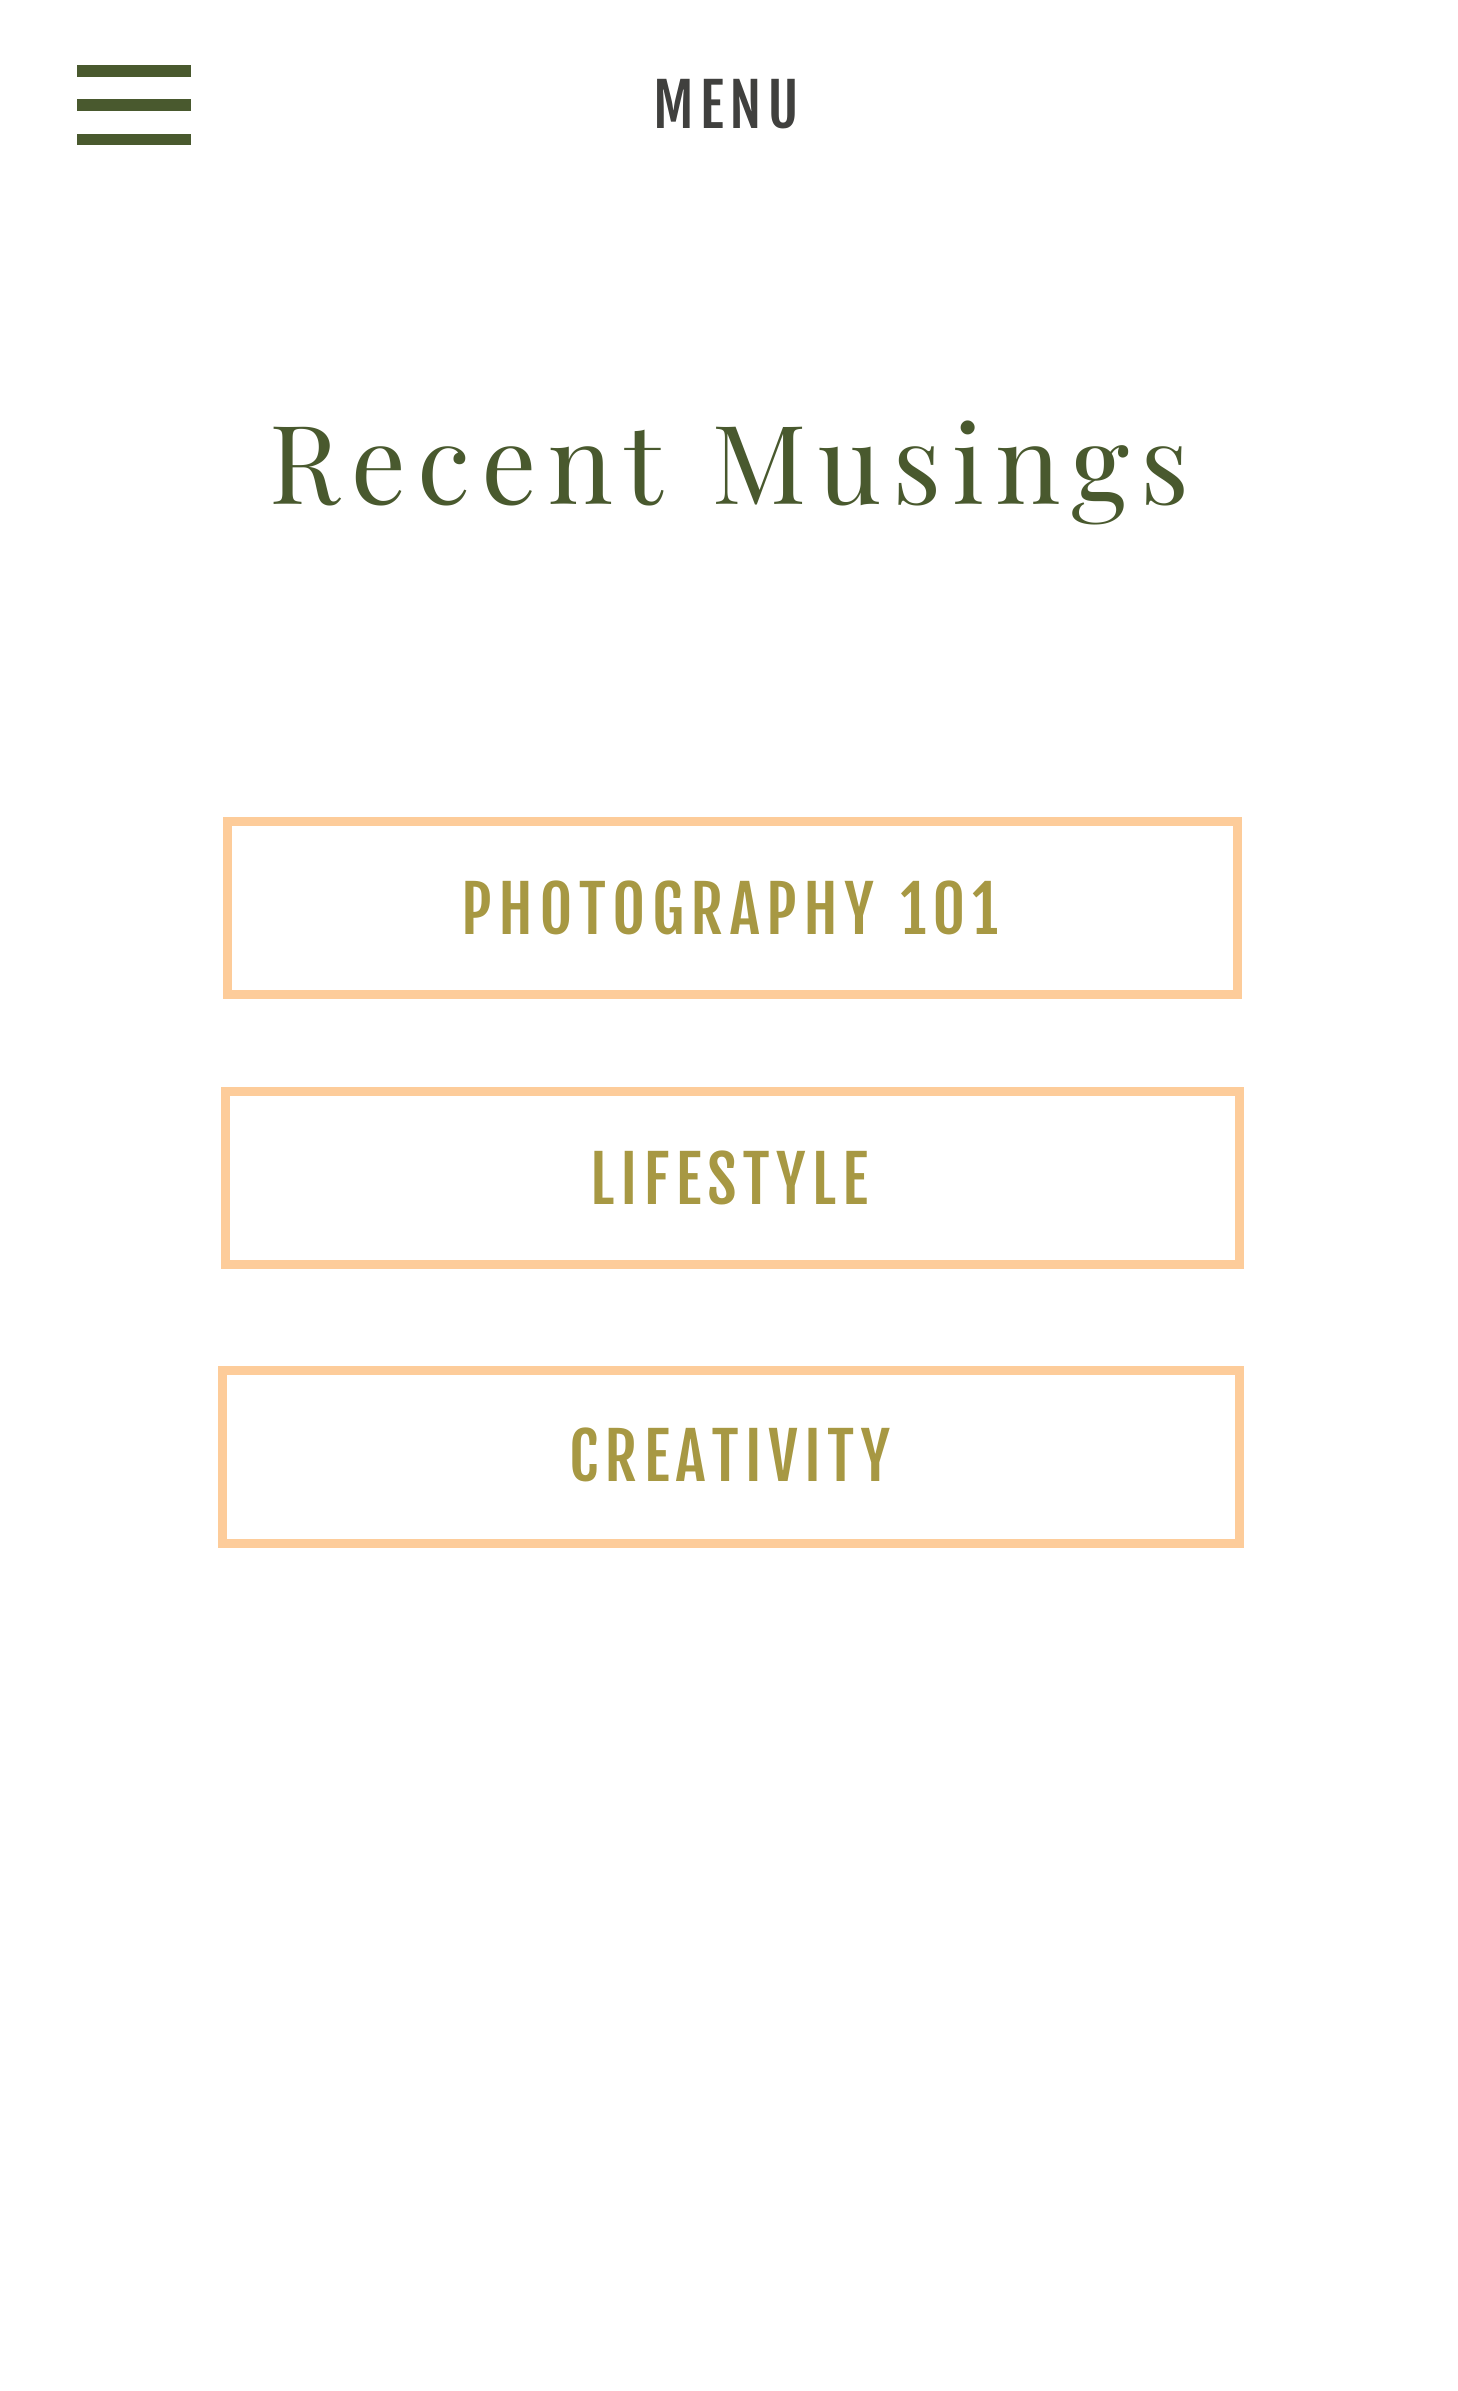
import math
import cairo



def draw_spaced(context, x, y, s, letter, word):
    context.move_to(x, y)
    for ch in s:
        context.show_text(ch)
        context.rel_move_to(letter + word * (ch == ' '), 0)


def draw(context):
    context.set_source_rgb(1, 1, 1)
    context.paint()
    context.set_source_rgb(73 / 255, 89 / 255, 46 / 255)
    context.new_path()
    context.move_to(77, 99)
    context.line_to(191, 99)
    context.line_to(191, 111)
    context.line_to(77, 111)
    context.close_path()
    context.move_to(77, 65)
    context.line_to(191, 65)
    context.line_to(191, 77)
    context.line_to(77, 77)
    context.close_path()
    context.move_to(77, 134)
    context.line_to(191, 134)
    context.line_to(191, 145)
    context.line_to(77, 145)
    context.close_path()
    context.fill()
    context.rectangle(227.5, 821.5, 1010, 173)
    context.set_source_rgb(253 / 255, 204 / 255, 154 / 255)
    context.set_line_width(9)
    context.stroke()
    context.rectangle(225.5, 1091.5, 1014, 173)
    context.stroke()
    context.rectangle(222.5, 1370.5, 1017, 173)
    context.stroke()
    context.select_font_face("Fjalla One")
    context.set_font_size(59)
    context.set_source_rgb(64 / 255, 64 / 255, 62 / 255)
    draw_spaced(context, 653, 128, "MENU", 6, 0)
    context.select_font_face("Playfair Display")
    context.set_font_size(109.25)
    context.set_source_rgb(73 / 255, 89 / 255, 46 / 255)
    draw_spaced(context, 269, 504, "Recent Musings", 11, 0)
    context.select_font_face("Fjalla One")
    context.set_font_size(63.75)
    context.set_source_rgb(167 / 255, 152 / 255, 67 / 255)
    draw_spaced(context, 461, 934, "PHOTOGRAPHY 101", 6.4, 0)
    draw_spaced(context, 590, 1204, "LIFESTYLE", 6.4, 0)
    draw_spaced(context, 569, 1481, "CREATIVITY", 6.4, 0)


surface = cairo.ImageSurface(cairo.Format.RGB24, 1458, 2391)
context = cairo.Context(surface)
options = cairo.FontOptions()
options.set_hint_metrics(cairo.HintMetrics.OFF)
options.set_hint_style(cairo.HintStyle.NONE)
context.set_font_options(options)
context.set_miter_limit(4)
draw(context)
surface.write_to_png("out.png")
